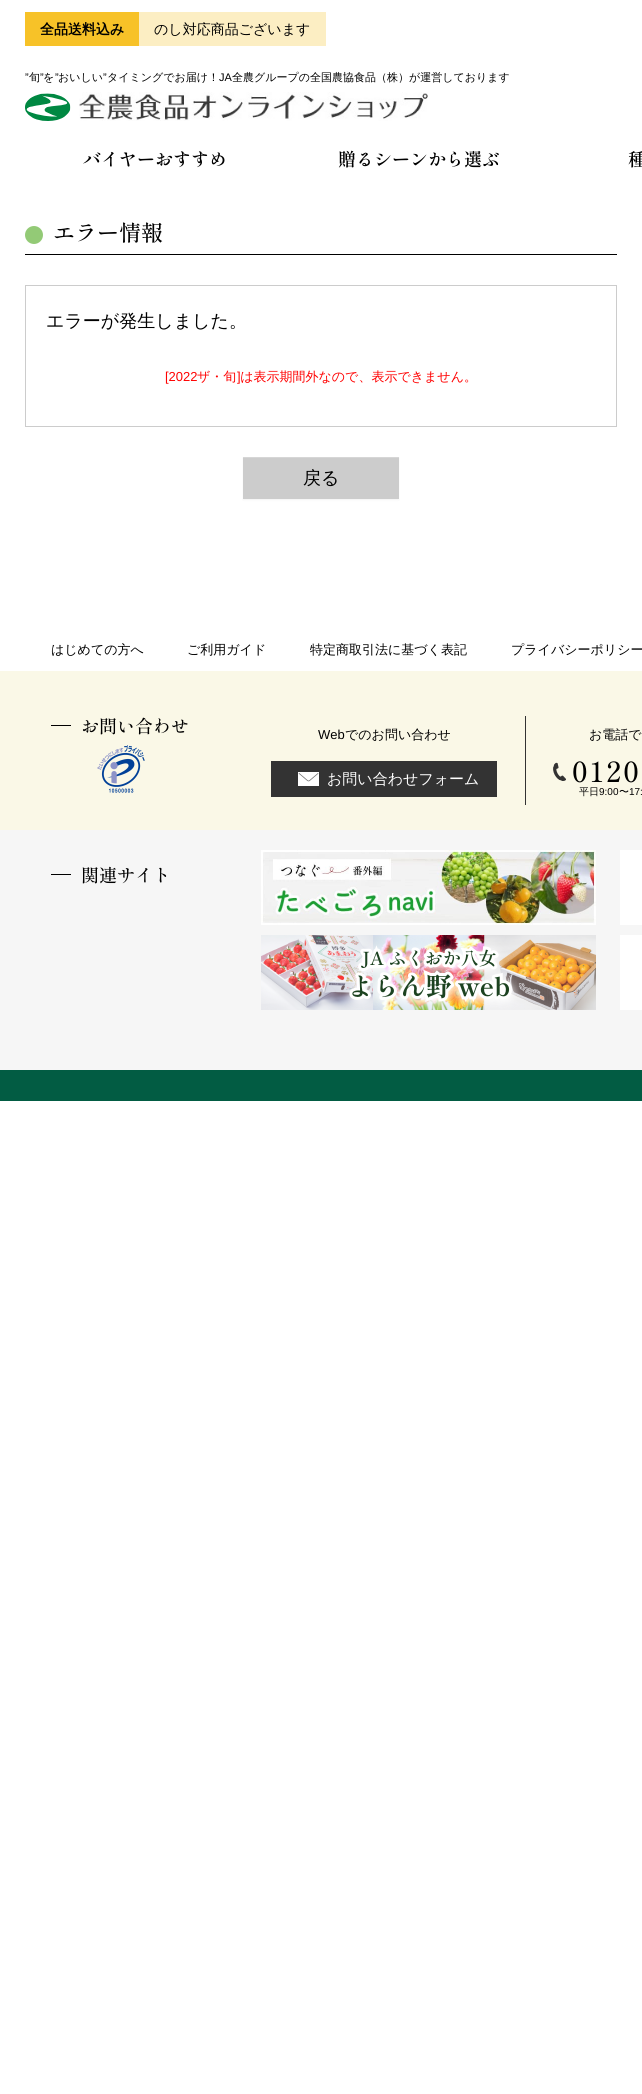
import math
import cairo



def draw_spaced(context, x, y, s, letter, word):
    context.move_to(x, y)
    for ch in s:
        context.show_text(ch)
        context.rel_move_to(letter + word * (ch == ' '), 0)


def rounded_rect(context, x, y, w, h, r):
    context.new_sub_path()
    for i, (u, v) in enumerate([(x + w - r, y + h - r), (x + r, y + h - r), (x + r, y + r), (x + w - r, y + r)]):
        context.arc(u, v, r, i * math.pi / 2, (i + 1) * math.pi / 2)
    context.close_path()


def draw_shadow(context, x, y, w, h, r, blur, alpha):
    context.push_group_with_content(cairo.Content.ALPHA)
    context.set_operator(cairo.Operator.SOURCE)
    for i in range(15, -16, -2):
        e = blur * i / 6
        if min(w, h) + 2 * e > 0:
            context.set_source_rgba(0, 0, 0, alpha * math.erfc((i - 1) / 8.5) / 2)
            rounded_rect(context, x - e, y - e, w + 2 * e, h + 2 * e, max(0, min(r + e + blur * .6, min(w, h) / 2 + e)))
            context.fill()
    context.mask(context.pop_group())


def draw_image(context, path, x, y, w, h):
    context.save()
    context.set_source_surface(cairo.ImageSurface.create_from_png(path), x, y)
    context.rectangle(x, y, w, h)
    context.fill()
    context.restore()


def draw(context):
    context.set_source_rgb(1, 1, 1)
    context.paint()
    context.set_source_rgb(247 / 255, 194 / 255, 40 / 255)
    context.rectangle(25, 12, 114, 34)
    context.fill()
    context.set_source_rgb(252 / 255, 238 / 255, 195 / 255)
    context.rectangle(139, 12, 187, 34)
    context.fill()
    draw_image(context, "images/1.png", 25, 92, 403, 29)
    context.set_source_rgb(0, 0, 0)
    context.rectangle(25, 254, 592, 1)
    context.fill()
    context.set_source_rgb(147 / 255, 202 / 255, 118 / 255)
    context.arc(34, 235, 9, 0, 2 * math.pi)
    context.fill()
    context.rectangle(25.5, 285.5, 591, 141)
    context.set_source_rgb(204 / 255, 204 / 255, 204 / 255)
    context.set_line_width(1)
    context.stroke()
    context.set_source_rgb(0, 0, 0)
    draw_shadow(context, 243, 458, 156, 42, 0, 1, 0.05)
    context.set_source_rgb(204 / 255, 204 / 255, 204 / 255)
    context.rectangle(243, 458, 156, 41)
    context.fill()
    context.set_source_rgb(214 / 255, 214 / 255, 214 / 255)
    context.rectangle(243, 457, 156, 1)
    context.fill()
    context.set_source_rgb(250 / 255, 248 / 255, 231 / 255)
    context.rectangle(0, 671, 642, 159)
    context.fill()
    context.set_source_rgb(0, 0, 0)
    context.rectangle(51, 725, 20, 1)
    context.fill()
    draw_image(context, "images/2.png", 97, 745, 48, 48)
    context.set_source_rgb(51 / 255, 51 / 255, 51 / 255)
    context.rectangle(525, 716, 1, 89)
    context.fill()
    context.rectangle(271, 761, 226, 36)
    context.fill()
    draw_image(context, "images/3.png", 298, 772, 21, 14)
    draw_image(context, "images/4.png", 553, 762, 13, 19)
    context.set_source_rgb(246 / 255, 246 / 255, 246 / 255)
    context.rectangle(0, 830, 642, 240)
    context.fill()
    context.set_source_rgb(0, 0, 0)
    context.rectangle(51, 874, 20, 1)
    context.fill()
    draw_image(context, "images/5.png", 261, 850, 335, 75)
    context.set_source_rgb(1, 1, 1)
    context.rectangle(620, 850, 22, 75)
    context.fill()
    draw_image(context, "images/6.png", 261, 935, 335, 75)
    context.rectangle(620, 935, 22, 75)
    context.fill()
    context.set_source_rgb(2 / 255, 92 / 255, 67 / 255)
    context.rectangle(0, 1070, 642, 31)
    context.fill()
    context.select_font_face("WenQuanYi Zen Hei", cairo.FontSlant.NORMAL, cairo.FontWeight.BOLD)
    context.set_font_size(14)
    context.set_source_rgb(0, 0, 0)
    context.move_to(40, 34)
    context.show_text("全品送料込み")
    context.select_font_face("WenQuanYi Zen Hei Medium")
    context.move_to(154, 34)
    context.show_text("のし対応商品ございます")
    context.select_font_face("Liberation Sans")
    context.set_font_size(11)
    context.move_to(25, 81)
    context.show_text("”")
    context.select_font_face("WenQuanYi Zen Hei Medium")
    context.move_to(29, 81)
    context.show_text("旬")
    context.select_font_face("Liberation Sans")
    context.move_to(40, 81)
    context.show_text("”")
    context.select_font_face("WenQuanYi Zen Hei Medium")
    context.move_to(43, 81)
    context.show_text("を")
    context.select_font_face("Liberation Sans")
    context.move_to(55, 81)
    context.show_text("”")
    context.select_font_face("WenQuanYi Zen Hei Medium")
    context.move_to(58, 81)
    context.show_text("おいしい")
    context.select_font_face("Liberation Sans")
    context.move_to(103, 81)
    context.show_text("”")
    context.select_font_face("WenQuanYi Zen Hei Medium")
    context.move_to(107, 81)
    context.show_text("タイミングでお届け！")
    context.select_font_face("Liberation Sans")
    context.move_to(219, 81)
    context.show_text("JA")
    context.select_font_face("WenQuanYi Zen Hei Medium")
    context.move_to(232, 81)
    context.show_text("全農グループの全国農協食品（株）が運営しております")
    context.select_font_face("Shippori Mincho SemiBold")
    context.set_font_size(18)
    context.move_to(83, 166)
    context.show_text("バイヤーおすすめ")
    context.move_to(338, 166)
    context.show_text("贈るシーンから選ぶ")
    context.move_to(628, 166)
    context.show_text("種")
    context.select_font_face("Shippori Mincho Medium")
    context.set_font_size(22)
    context.move_to(53, 241)
    context.show_text("エラー情報")
    context.select_font_face("WenQuanYi Zen Hei Medium")
    context.set_font_size(18)
    context.move_to(46, 327)
    context.show_text("エラーが発生しました。")
    context.select_font_face("Liberation Sans")
    context.set_font_size(13)
    context.set_source_rgb(1, 0, 0)
    context.move_to(165, 381)
    context.show_text("[2022")
    context.select_font_face("WenQuanYi Zen Hei Medium")
    context.move_to(197, 381)
    context.show_text("ザ・旬 は表示期間外なので、表示できません。")
    context.select_font_face("Liberation Sans")
    context.move_to(237, 381)
    context.show_text("]")
    context.select_font_face("WenQuanYi Zen Hei Medium")
    context.set_font_size(18)
    context.set_source_rgb(0, 0, 0)
    context.move_to(303, 484)
    context.show_text("戻る")
    context.set_font_size(13)
    context.move_to(51, 654)
    context.show_text("はじめての方へ")
    context.move_to(187, 654)
    context.show_text("ご利用ガイド")
    context.move_to(310, 654)
    context.show_text("特定商取引法に基づく表記")
    context.move_to(511, 654)
    context.show_text("プライバシーポリシー")
    context.select_font_face("Shippori Mincho Medium")
    context.set_font_size(18)
    context.move_to(81, 733)
    context.show_text("お問い合わせ")
    context.select_font_face("Liberation Sans")
    context.set_font_size(13)
    context.move_to(318, 739)
    context.show_text("Web")
    context.select_font_face("WenQuanYi Zen Hei Medium")
    context.move_to(345, 739)
    context.show_text("でのお問い合わせ")
    context.set_font_size(15)
    context.set_source_rgb(1, 1, 1)
    context.move_to(327, 784)
    context.show_text("お問い合わせフォーム")
    context.set_font_size(13)
    context.set_source_rgb(0, 0, 0)
    context.move_to(589, 739)
    context.show_text("お電話で")
    context.select_font_face("Shippori Mincho Medium")
    context.set_font_size(28)
    draw_spaced(context, 572, 782, "0120", 2, 0)
    context.select_font_face("WenQuanYi Zen Hei Medium")
    context.set_font_size(10)
    context.move_to(579, 795)
    context.show_text("平日")
    context.select_font_face("Liberation Sans")
    context.move_to(599, 795)
    context.show_text("9:00")
    context.select_font_face("WenQuanYi Zen Hei Medium")
    context.move_to(619, 795)
    context.show_text("〜")
    context.select_font_face("Liberation Sans")
    context.move_to(629, 795)
    context.show_text("17:")
    context.select_font_face("Shippori Mincho Medium")
    context.set_font_size(18)
    context.move_to(81, 882)
    context.show_text("関連サイト")


surface = cairo.ImageSurface(cairo.Format.RGB24, 642, 2094)
context = cairo.Context(surface)
options = cairo.FontOptions()
options.set_hint_metrics(cairo.HintMetrics.OFF)
options.set_hint_style(cairo.HintStyle.NONE)
context.set_font_options(options)
context.set_miter_limit(4)
draw(context)
surface.write_to_png("out.png")
